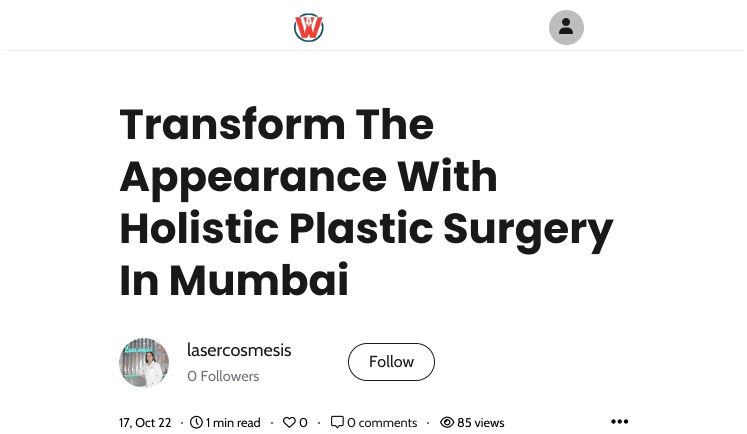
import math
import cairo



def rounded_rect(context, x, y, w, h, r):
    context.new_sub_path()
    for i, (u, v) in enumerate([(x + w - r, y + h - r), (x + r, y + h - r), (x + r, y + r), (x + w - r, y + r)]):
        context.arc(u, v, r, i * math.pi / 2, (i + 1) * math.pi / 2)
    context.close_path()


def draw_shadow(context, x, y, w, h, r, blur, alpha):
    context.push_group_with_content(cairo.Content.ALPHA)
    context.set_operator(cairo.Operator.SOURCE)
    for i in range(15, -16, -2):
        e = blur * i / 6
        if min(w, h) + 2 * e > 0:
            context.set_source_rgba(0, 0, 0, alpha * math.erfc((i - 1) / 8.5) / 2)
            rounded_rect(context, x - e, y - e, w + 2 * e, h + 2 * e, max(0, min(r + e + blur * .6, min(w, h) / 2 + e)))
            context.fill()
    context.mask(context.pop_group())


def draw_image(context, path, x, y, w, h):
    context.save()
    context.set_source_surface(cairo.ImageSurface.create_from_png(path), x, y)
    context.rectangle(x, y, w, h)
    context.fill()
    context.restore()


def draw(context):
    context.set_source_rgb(1, 1, 1)
    context.paint()
    context.save()
    context.rectangle(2, 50, 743, 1)
    context.clip()
    context.set_source_rgb(0, 0, 0)
    draw_shadow(context, 2, 4, 743, 46, 0, 1, 0.15)
    context.restore()
    draw_image(context, "images/1.png", 294, 13, 30, 29)
    context.set_source_rgb(189 / 255, 189 / 255, 189 / 255)
    context.arc(566.5, 27.5, 17.5, 0, 2 * math.pi)
    context.fill()
    draw_image(context, "images/2.png", 559, 18, 14, 16)
    draw_image(context, "images/3.png", 119, 338, 50, 50)
    rounded_rect(context, 348.5, 343.5, 86, 37, 18.5)
    context.set_source_rgb(25 / 255, 25 / 255, 25 / 255)
    context.set_line_width(1)
    context.stroke()
    context.set_source_rgb(117 / 255, 117 / 255, 117 / 255)
    context.rectangle(181, 422, 2, 2)
    context.fill()
    draw_image(context, "images/4.png", 190, 415, 13, 14)
    context.rectangle(271, 422, 2, 2)
    context.fill()
    draw_image(context, "images/5.png", 283, 416, 13, 12)
    context.rectangle(318, 422, 2, 2)
    context.fill()
    draw_image(context, "images/6.png", 331, 415, 13, 14)
    context.rectangle(427, 422, 2, 2)
    context.fill()
    draw_image(context, "images/7.png", 440, 416, 15, 12)
    draw_image(context, "images/8.png", 611, 419, 18, 5)
    context.select_font_face("Poppins", cairo.FontSlant.NORMAL, cairo.FontWeight.BOLD)
    context.set_font_size(42)
    context.set_source_rgb(25 / 255, 25 / 255, 25 / 255)
    context.move_to(119, 139)
    context.show_text("Transform The")
    context.move_to(119, 191)
    context.show_text("Appearance With")
    context.move_to(119, 243)
    context.show_text("Holistic Plastic Surgery")
    context.move_to(119, 295)
    context.show_text("In Mumbai")
    context.select_font_face("Cabin")
    context.set_font_size(18)
    context.move_to(187, 356)
    context.show_text("lasercosmesis")
    context.set_font_size(14.5)
    context.set_source_rgb(108 / 255, 117 / 255, 125 / 255)
    context.move_to(187, 381)
    context.show_text("0 Followers")
    context.set_font_size(16)
    context.set_source_rgb(25 / 255, 25 / 255, 25 / 255)
    context.move_to(369, 367)
    context.show_text("Follow")
    context.set_font_size(12.75)
    context.set_source_rgb(0, 0, 0)
    context.move_to(119, 427)
    context.show_text("17, Oct 22")
    context.move_to(206, 427)
    context.show_text("1 min read")
    context.move_to(299, 427)
    context.show_text("0")
    context.set_source_rgb(25 / 255, 25 / 255, 25 / 255)
    context.move_to(347, 427)
    context.show_text("0 comments")
    context.set_source_rgb(0, 0, 0)
    context.move_to(457, 427)
    context.show_text("85 views")


surface = cairo.ImageSurface(cairo.Format.RGB24, 747, 434)
context = cairo.Context(surface)
options = cairo.FontOptions()
options.set_hint_metrics(cairo.HintMetrics.OFF)
options.set_hint_style(cairo.HintStyle.NONE)
context.set_font_options(options)
context.set_miter_limit(4)
draw(context)
surface.write_to_png("out.png")
